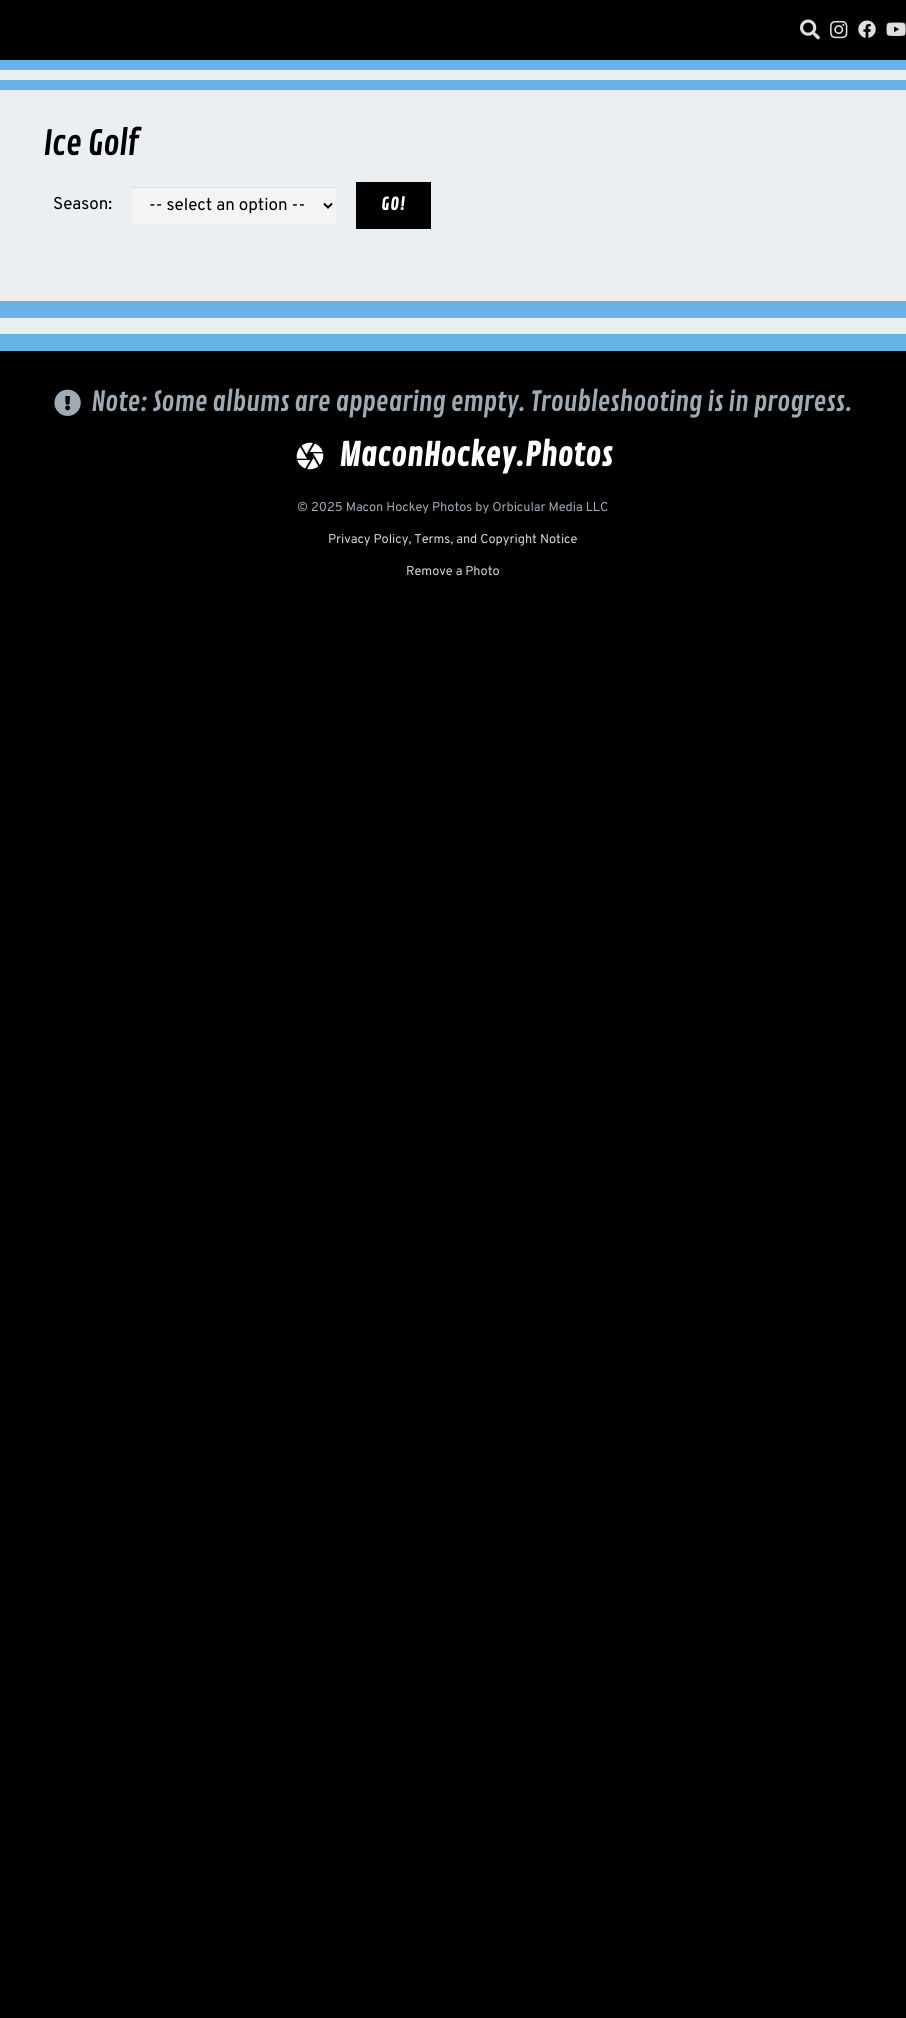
import math
import cairo



def draw_spaced(context, x, y, s, letter, word):
    context.move_to(x, y)
    for ch in s:
        context.show_text(ch)
        context.rel_move_to(letter + word * (ch == ' '), 0)


def draw_image(context, path, x, y, w, h):
    context.save()
    context.set_source_surface(cairo.ImageSurface.create_from_png(path), x, y)
    context.rectangle(x, y, w, h)
    context.fill()
    context.restore()


def draw(context):
    context.set_source_rgb(0, 0, 0)
    context.paint()
    context.set_source_rgb(235 / 255, 239 / 255, 242 / 255)
    context.rectangle(0, 70, 906, 231)
    context.fill()
    draw_image(context, "images/1.png", 800, 19, 20, 21)
    draw_image(context, "images/2.png", 830, 20, 18, 19)
    draw_image(context, "images/3.png", 858, 20, 18, 18)
    draw_image(context, "images/4.png", 886, 22, 20, 14)
    context.set_source_rgb(103 / 255, 178 / 255, 231 / 255)
    context.rectangle(0, 60, 906, 10)
    context.fill()
    context.rectangle(0, 80, 906, 10)
    context.fill()
    context.set_source_rgb(242 / 255, 244 / 255, 245 / 255)
    context.rectangle(132, 188, 204, 36)
    context.fill()
    context.set_source_rgb(223 / 255, 224 / 255, 225 / 255)
    context.rectangle(132, 187, 204, 1)
    context.fill()
    context.new_path()
    context.move_to(324, 203.5)
    context.line_to(328, 207.5)
    context.line_to(332, 203.5)
    context.set_source_rgb(0, 0, 0)
    context.stroke()
    context.rectangle(356, 182, 75, 47)
    context.fill()
    context.set_source_rgb(235 / 255, 239 / 255, 242 / 255)
    context.rectangle(0, 318, 906, 16)
    context.fill()
    context.set_source_rgb(103 / 255, 178 / 255, 231 / 255)
    context.rectangle(0, 301, 906, 17)
    context.fill()
    context.rectangle(0, 334, 906, 17)
    context.fill()
    draw_image(context, "images/5.png", 54, 389, 27, 27)
    draw_image(context, "images/6.png", 296, 442, 28, 28)
    context.select_font_face("Contrail One")
    context.set_font_size(34)
    context.set_source_rgb(0, 0, 0)
    draw_spaced(context, 43, 155, "Ice Golf", -0.75, 0)
    context.select_font_face("Overpass")
    context.set_font_size(17)
    context.move_to(53, 209)
    context.show_text("Season:")
    context.move_to(149, 210)
    context.show_text("-- select an option --")
    context.select_font_face("Contrail One", cairo.FontSlant.NORMAL, cairo.FontWeight.BOLD)
    context.set_source_rgb(1, 1, 1)
    draw_spaced(context, 381, 210, "GO!", 1, 0)
    context.select_font_face("Contrail One")
    context.set_font_size(27.2)
    context.set_source_rgb(158 / 255, 171 / 255, 181 / 255)
    draw_spaced(context, 91, 411, "Note: Some albums are appearing empty. Troubleshooting is in progress.", -0.55, 0)
    context.select_font_face("Contrail One", cairo.FontSlant.NORMAL, cairo.FontWeight.BOLD)
    context.set_font_size(32)
    context.set_source_rgb(1, 1, 1)
    context.move_to(339, 466)
    context.show_text("MaconHockey.Photos")
    context.select_font_face("Overpass")
    context.set_font_size(12.75)
    context.set_source_rgb(158 / 255, 171 / 255, 181 / 255)
    context.move_to(297, 511)
    context.show_text("© 2025 Macon Hockey Photos by Orbicular Media LLC")
    context.set_source_rgb(206 / 255, 215 / 255, 222 / 255)
    context.move_to(328, 543)
    context.show_text("Privacy Policy, Terms, and Copyright Notice")
    context.move_to(406, 575)
    context.show_text("Remove a Photo")


surface = cairo.ImageSurface(cairo.Format.RGB24, 906, 2018)
context = cairo.Context(surface)
options = cairo.FontOptions()
options.set_hint_metrics(cairo.HintMetrics.OFF)
options.set_hint_style(cairo.HintStyle.NONE)
context.set_font_options(options)
context.set_miter_limit(4)
draw(context)
surface.write_to_png("out.png")
